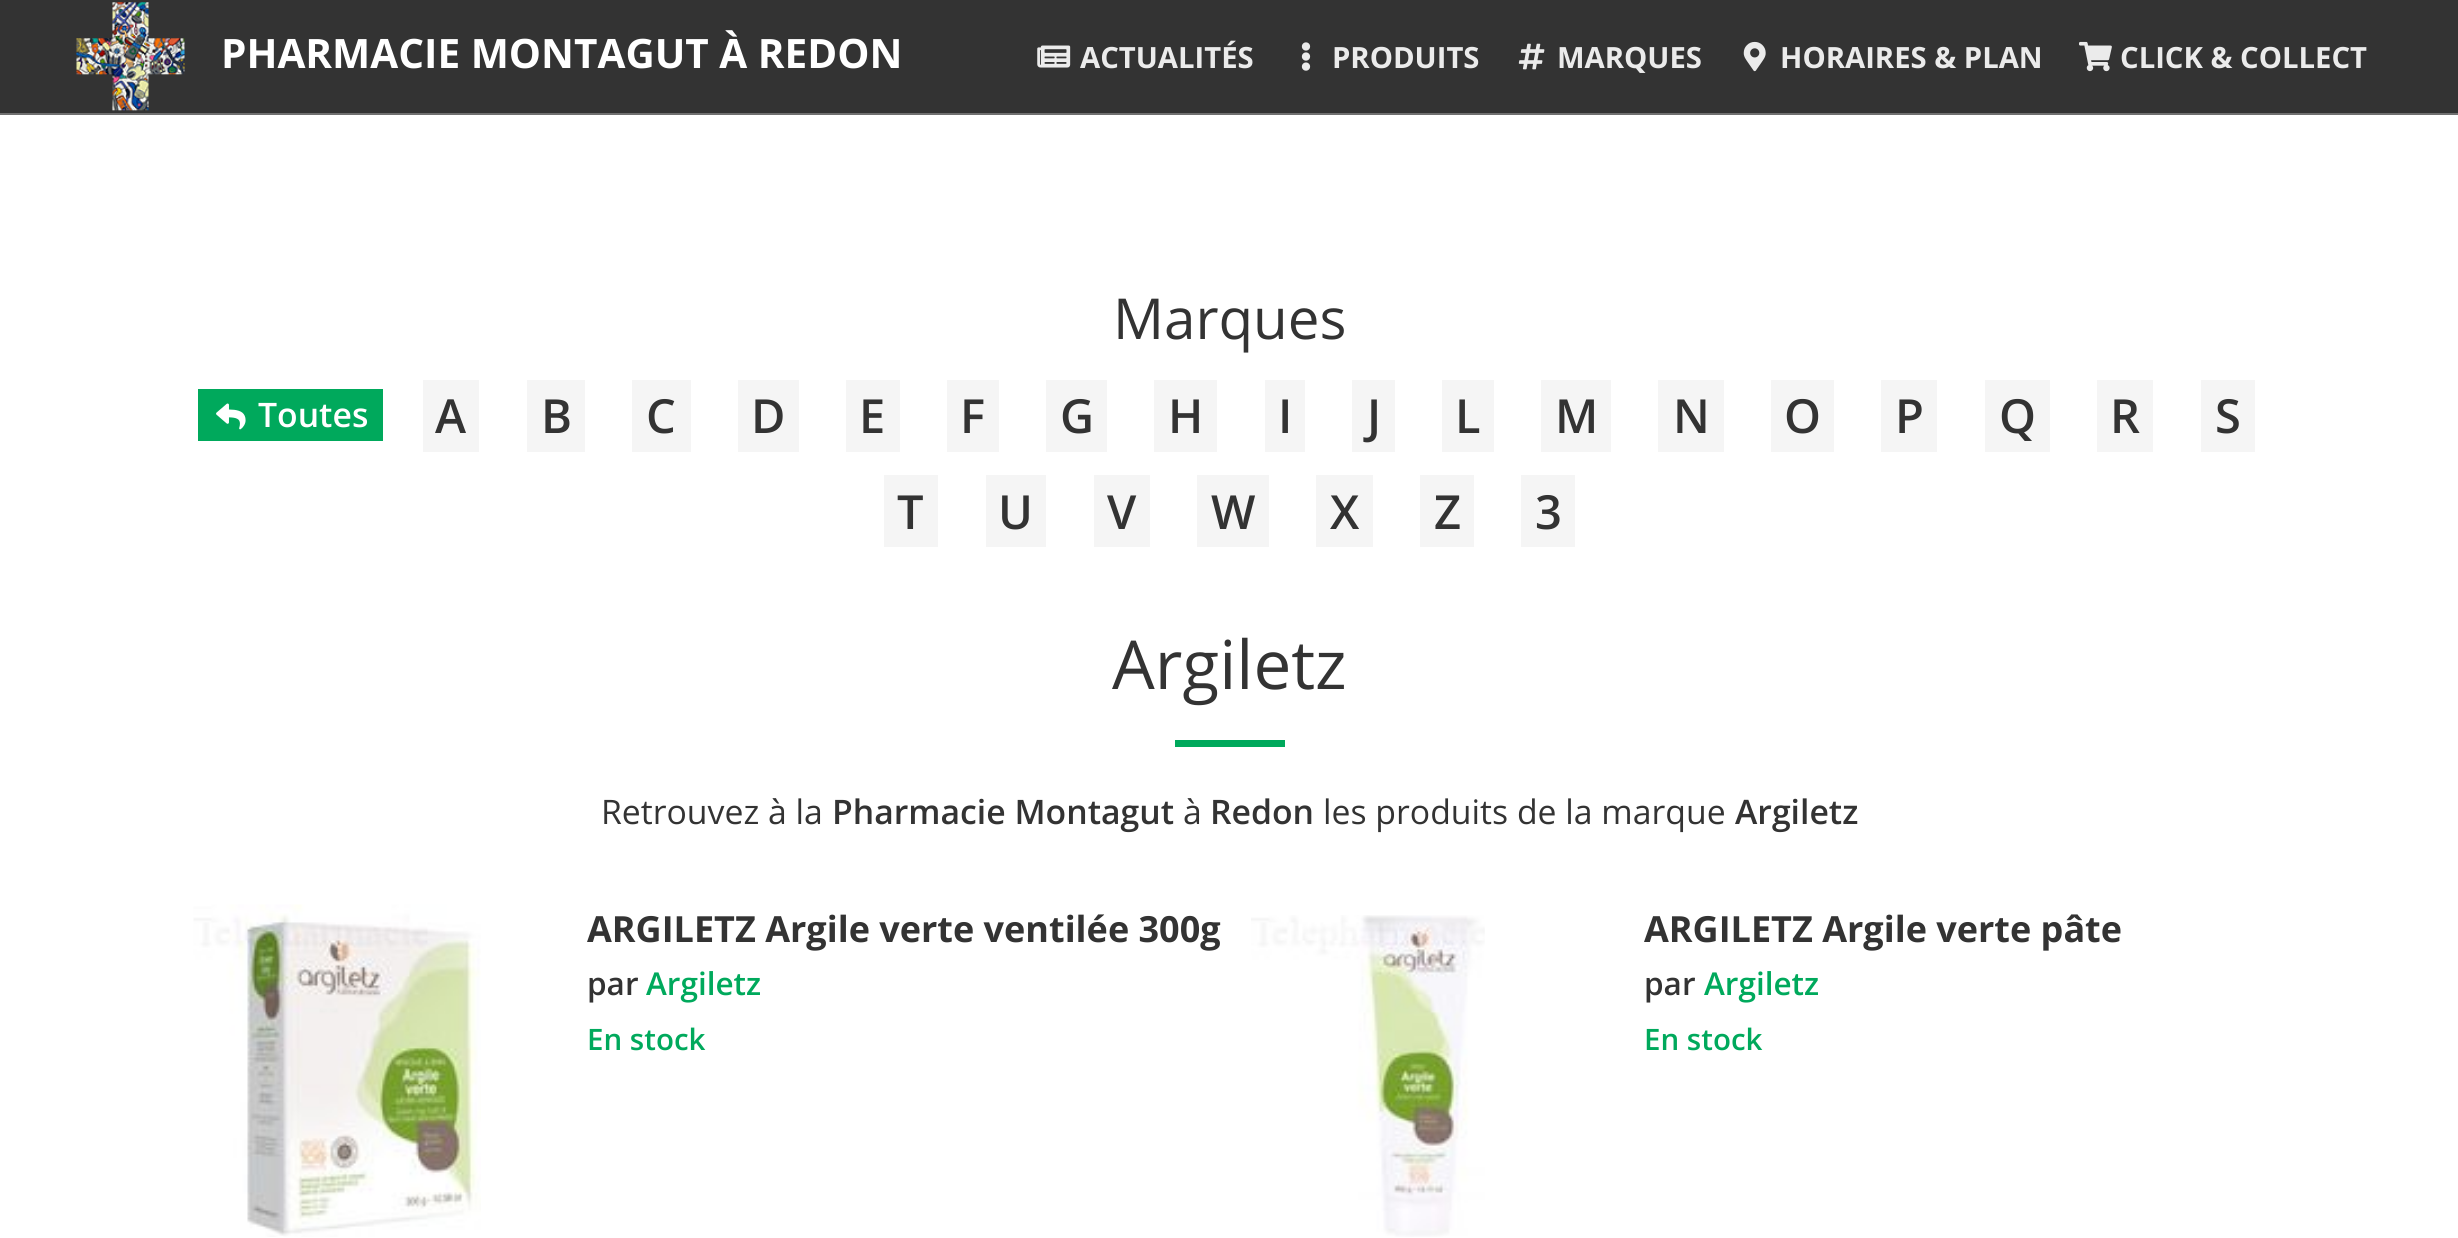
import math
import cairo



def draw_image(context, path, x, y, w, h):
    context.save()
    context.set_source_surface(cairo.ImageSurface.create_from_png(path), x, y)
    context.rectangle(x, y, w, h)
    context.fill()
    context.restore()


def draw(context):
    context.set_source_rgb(1, 1, 1)
    context.paint()
    context.set_source_rgb(51 / 255, 51 / 255, 51 / 255)
    context.rectangle(0, 0, 2458, 113)
    context.fill()
    context.set_source_rgb(112 / 255, 112 / 255, 112 / 255)
    context.rectangle(0, 113, 2458, 2)
    context.fill()
    draw_image(context, "images/1.png", 76, 2, 109, 109)
    draw_image(context, "images/2.png", 1037, 45, 34, 23)
    draw_image(context, "images/3.png", 1301, 42, 10, 29)
    draw_image(context, "images/4.png", 1518, 43, 27, 27)
    draw_image(context, "images/5.png", 1743, 41, 23, 31)
    draw_image(context, "images/6.png", 2079, 41, 33, 31)
    context.set_source_rgb(0, 169 / 255, 92 / 255)
    context.rectangle(198, 389, 185, 52)
    context.fill()
    draw_image(context, "images/7.png", 216, 403, 30, 27)
    context.set_source_rgb(245 / 255, 245 / 255, 245 / 255)
    context.rectangle(423, 380, 56, 72)
    context.fill()
    context.rectangle(527, 380, 58, 72)
    context.fill()
    context.rectangle(632, 380, 59, 72)
    context.fill()
    context.rectangle(738, 380, 61, 72)
    context.fill()
    context.rectangle(846, 380, 54, 72)
    context.fill()
    context.rectangle(947, 380, 52, 72)
    context.fill()
    context.rectangle(1046, 380, 61, 72)
    context.fill()
    context.rectangle(1154, 380, 63, 72)
    context.fill()
    context.rectangle(1265, 380, 40, 72)
    context.fill()
    context.rectangle(1352, 380, 43, 72)
    context.fill()
    context.rectangle(1442, 380, 52, 72)
    context.fill()
    context.rectangle(1541, 380, 70, 72)
    context.fill()
    context.rectangle(1658, 380, 66, 72)
    context.fill()
    context.rectangle(1771, 380, 63, 72)
    context.fill()
    context.rectangle(1881, 380, 56, 72)
    context.fill()
    context.rectangle(1985, 380, 65, 72)
    context.fill()
    context.rectangle(2097, 380, 56, 72)
    context.fill()
    context.rectangle(2201, 380, 54, 72)
    context.fill()
    context.rectangle(884, 475, 54, 72)
    context.fill()
    context.rectangle(986, 475, 60, 72)
    context.fill()
    context.rectangle(1094, 475, 56, 72)
    context.fill()
    context.rectangle(1197, 475, 72, 72)
    context.fill()
    context.rectangle(1316, 475, 57, 72)
    context.fill()
    context.rectangle(1420, 475, 54, 72)
    context.fill()
    context.rectangle(1521, 475, 54, 72)
    context.fill()
    context.set_source_rgb(0, 169 / 255, 92 / 255)
    context.rectangle(1175, 740, 110, 7)
    context.fill()
    draw_image(context, "images/8.png", 193, 904, 288, 333)
    draw_image(context, "images/9.png", 1251, 915, 234, 322)
    context.select_font_face("Open Sans", cairo.FontSlant.NORMAL, cairo.FontWeight.BOLD)
    context.set_font_size(40.5)
    context.set_source_rgb(1, 1, 1)
    context.move_to(221, 68)
    context.show_text("PHARMACIE MONTAGUT À REDON")
    context.set_font_size(29.25)
    context.set_source_rgb(235 / 255, 235 / 255, 235 / 255)
    context.move_to(1080, 68)
    context.show_text("ACTUALITÉS")
    context.move_to(1332, 68)
    context.show_text("PRODUITS")
    context.move_to(1557, 68)
    context.show_text("MARQUES")
    context.move_to(1780, 68)
    context.show_text("HORAIRES & PLAN")
    context.move_to(2120, 68)
    context.show_text("CLICK & COLLECT")
    context.select_font_face("Open Sans")
    context.set_font_size(56.5)
    context.set_source_rgb(51 / 255, 51 / 255, 51 / 255)
    context.move_to(1113, 339)
    context.show_text("Marques")
    context.select_font_face("Open Sans SemiBold")
    context.set_font_size(33.75)
    context.set_source_rgb(1, 1, 1)
    context.move_to(258, 427)
    context.show_text("Toutes")
    context.set_font_size(47)
    context.set_source_rgb(51 / 255, 51 / 255, 51 / 255)
    context.move_to(435, 433)
    context.show_text("A")
    context.move_to(541, 433)
    context.show_text("B")
    context.move_to(646, 433)
    context.show_text("C")
    context.move_to(751, 433)
    context.show_text("D")
    context.move_to(859, 433)
    context.show_text("E")
    context.move_to(960, 433)
    context.show_text("F")
    context.move_to(1060, 433)
    context.show_text("G")
    context.move_to(1168, 433)
    context.show_text("H")
    context.move_to(1278, 433)
    context.show_text("I")
    context.move_to(1367, 433)
    context.show_text("J")
    context.move_to(1455, 433)
    context.show_text("L")
    context.move_to(1555, 433)
    context.show_text("M")
    context.move_to(1673, 433)
    context.show_text("N")
    context.move_to(1784, 433)
    context.show_text("O")
    context.move_to(1895, 433)
    context.show_text("P")
    context.move_to(1999, 433)
    context.show_text("Q")
    context.move_to(2110, 433)
    context.show_text("R")
    context.move_to(2215, 433)
    context.show_text("S")
    context.move_to(897, 529)
    context.show_text("T")
    context.move_to(998, 529)
    context.show_text("U")
    context.move_to(1107, 529)
    context.show_text("V")
    context.move_to(1211, 529)
    context.show_text("W")
    context.move_to(1330, 529)
    context.show_text("X")
    context.move_to(1434, 529)
    context.show_text("Z")
    context.move_to(1535, 529)
    context.show_text("3")
    context.select_font_face("Open Sans")
    context.set_font_size(67.5)
    context.move_to(1112, 689)
    context.show_text("Argiletz")
    context.set_font_size(33.75)
    context.move_to(601, 824)
    context.show_text("Retrouvez à la")
    context.select_font_face("Open Sans SemiBold")
    context.move_to(832, 824)
    context.show_text("Pharmacie Montagut")
    context.select_font_face("Open Sans")
    context.move_to(1183, 824)
    context.show_text("à")
    context.select_font_face("Open Sans SemiBold")
    context.move_to(1210, 824)
    context.show_text("Redon")
    context.select_font_face("Open Sans")
    context.move_to(1323, 824)
    context.show_text("les produits de la marque")
    context.select_font_face("Open Sans SemiBold")
    context.move_to(1735, 824)
    context.show_text("Argiletz")
    context.select_font_face("Open Sans", cairo.FontSlant.NORMAL, cairo.FontWeight.BOLD)
    context.set_font_size(36)
    context.move_to(587, 942)
    context.show_text("ARGILETZ Argile verte ventilée 300g")
    context.select_font_face("Open Sans SemiBold")
    context.set_font_size(31.5)
    context.move_to(587, 995)
    context.show_text("par")
    context.set_source_rgb(0, 169 / 255, 92 / 255)
    context.move_to(646, 995)
    context.show_text("Argiletz")
    context.set_font_size(29.5)
    context.move_to(587, 1050)
    context.show_text("En stock")
    context.select_font_face("Open Sans", cairo.FontSlant.NORMAL, cairo.FontWeight.BOLD)
    context.set_font_size(36)
    context.set_source_rgb(51 / 255, 51 / 255, 51 / 255)
    context.move_to(1644, 942)
    context.show_text("ARGILETZ Argile verte pâte")
    context.select_font_face("Open Sans SemiBold")
    context.set_font_size(31.5)
    context.move_to(1644, 995)
    context.show_text("par")
    context.set_source_rgb(0, 169 / 255, 92 / 255)
    context.move_to(1704, 995)
    context.show_text("Argiletz")
    context.set_font_size(29.5)
    context.move_to(1644, 1050)
    context.show_text("En stock")


surface = cairo.ImageSurface(cairo.Format.RGB24, 2458, 1238)
context = cairo.Context(surface)
options = cairo.FontOptions()
options.set_hint_metrics(cairo.HintMetrics.OFF)
options.set_hint_style(cairo.HintStyle.NONE)
context.set_font_options(options)
context.set_miter_limit(4)
draw(context)
surface.write_to_png("out.png")
